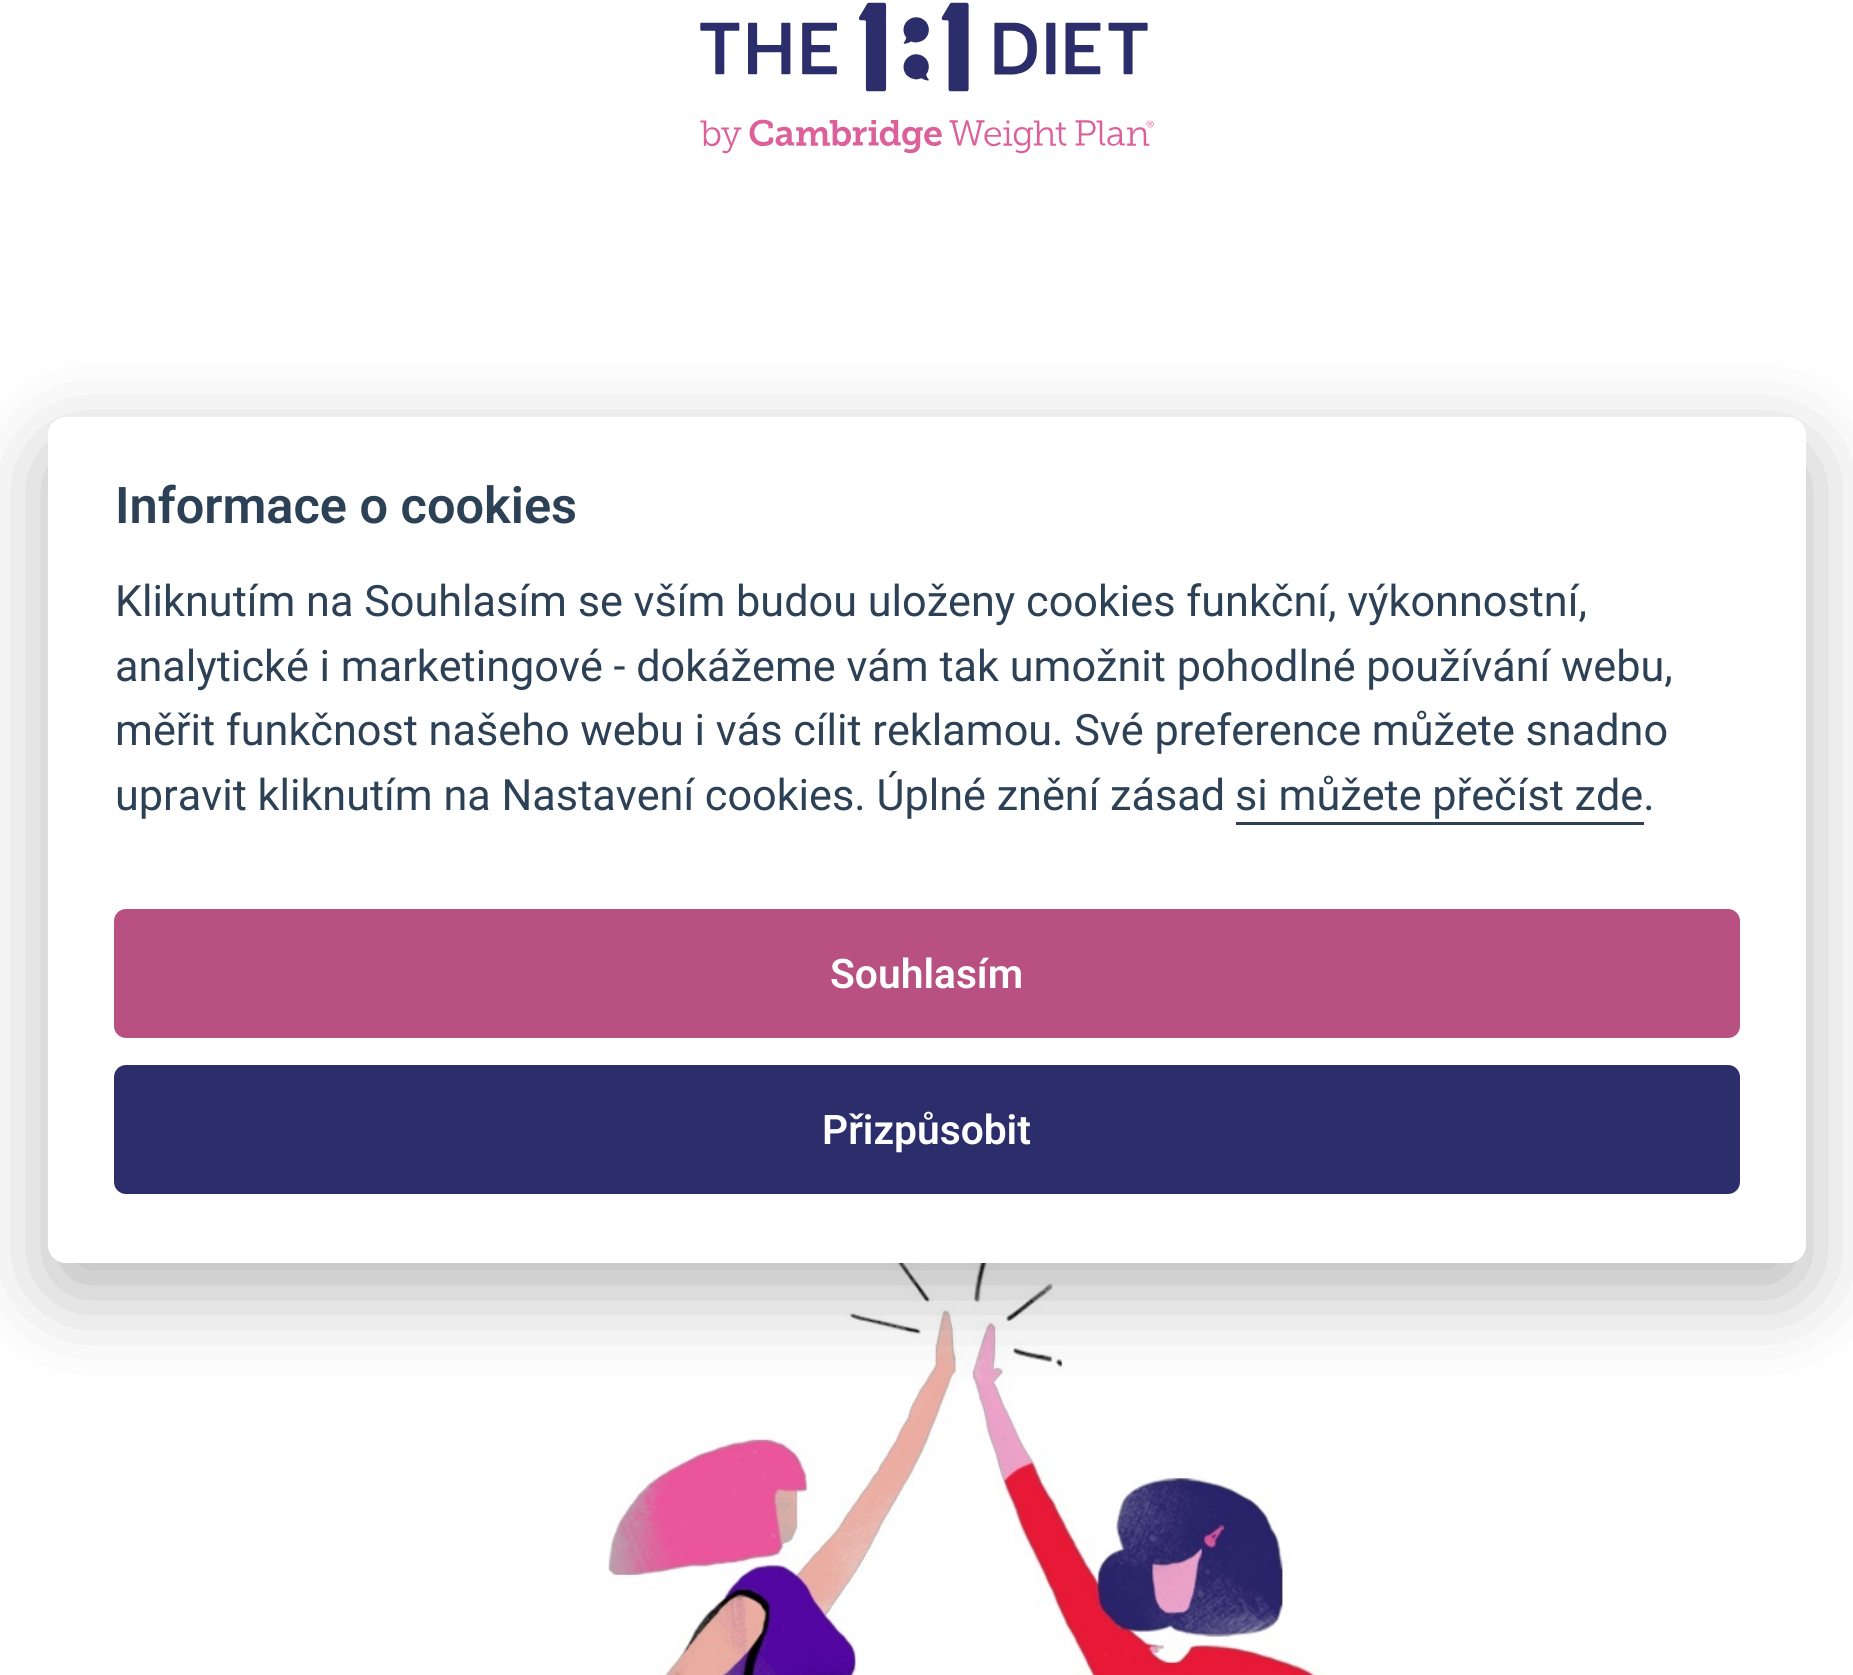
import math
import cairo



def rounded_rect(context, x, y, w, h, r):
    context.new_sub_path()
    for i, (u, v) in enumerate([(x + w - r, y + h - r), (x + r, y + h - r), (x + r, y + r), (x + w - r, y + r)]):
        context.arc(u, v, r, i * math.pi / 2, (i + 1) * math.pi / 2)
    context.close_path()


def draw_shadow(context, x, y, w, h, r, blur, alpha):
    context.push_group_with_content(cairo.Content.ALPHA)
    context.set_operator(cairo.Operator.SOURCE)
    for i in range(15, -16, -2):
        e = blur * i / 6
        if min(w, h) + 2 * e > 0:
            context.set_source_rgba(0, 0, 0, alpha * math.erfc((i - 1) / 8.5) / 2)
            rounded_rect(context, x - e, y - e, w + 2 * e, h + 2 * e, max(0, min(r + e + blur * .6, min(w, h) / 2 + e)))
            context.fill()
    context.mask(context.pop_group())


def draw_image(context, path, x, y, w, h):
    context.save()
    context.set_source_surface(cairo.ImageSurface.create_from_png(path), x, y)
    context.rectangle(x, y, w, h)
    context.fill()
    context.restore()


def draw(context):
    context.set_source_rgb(1, 1, 1)
    context.paint()
    draw_image(context, "images/1.png", 700, 2, 454, 152)
    draw_image(context, "images/2.png", 608, 1263, 718, 412)
    context.set_source_rgb(2 / 255, 2 / 255, 3 / 255)
    draw_shadow(context, 48, 447, 1758, 846, 18, 45, 0.28)
    context.set_source_rgb(1, 1, 1)
    rounded_rect(context, 48, 417, 1758, 846, 18)
    context.fill()
    context.set_source_rgb(45 / 255, 65 / 255, 86 / 255)
    context.rectangle(1236, 822, 408, 3)
    context.fill()
    context.set_source_rgb(184 / 255, 81 / 255, 129 / 255)
    rounded_rect(context, 114, 909, 1626, 129, 12)
    context.fill()
    context.set_source_rgb(43 / 255, 46 / 255, 107 / 255)
    rounded_rect(context, 114, 1065, 1626, 129, 12)
    context.fill()
    context.select_font_face("Roboto SemiBold")
    context.set_font_size(50.5)
    context.set_source_rgb(45 / 255, 65 / 255, 86 / 255)
    context.move_to(115, 523)
    context.show_text("Informace o cookies")
    context.select_font_face("Roboto")
    context.set_font_size(43.2)
    context.move_to(115, 616)
    context.show_text("Kliknutím na Souhlasím se vším budou uloženy cookies funkční, výkonnostní,")
    context.move_to(115, 681)
    context.show_text("analytické i marketingové - dokážeme vám tak umožnit pohodlné používání webu,")
    context.move_to(115, 745)
    context.show_text("měřit funkčnost našeho webu i vás cílit reklamou. Své preference můžete snadno")
    context.move_to(115, 810)
    context.show_text("upravit kliknutím na Nastavení cookies. Úplné znění zásad")
    context.move_to(1235, 810)
    context.show_text("si můžete přečíst zde.")
    context.select_font_face("Roboto SemiBold")
    context.set_font_size(40.75)
    context.set_source_rgb(1, 1, 1)
    context.move_to(830, 988)
    context.show_text("Souhlasím")
    context.move_to(822, 1144)
    context.show_text("Přizpůsobit")


surface = cairo.ImageSurface(cairo.Format.RGB24, 1853, 1675)
context = cairo.Context(surface)
options = cairo.FontOptions()
options.set_hint_metrics(cairo.HintMetrics.OFF)
options.set_hint_style(cairo.HintStyle.NONE)
context.set_font_options(options)
context.set_miter_limit(4)
draw(context)
surface.write_to_png("out.png")
